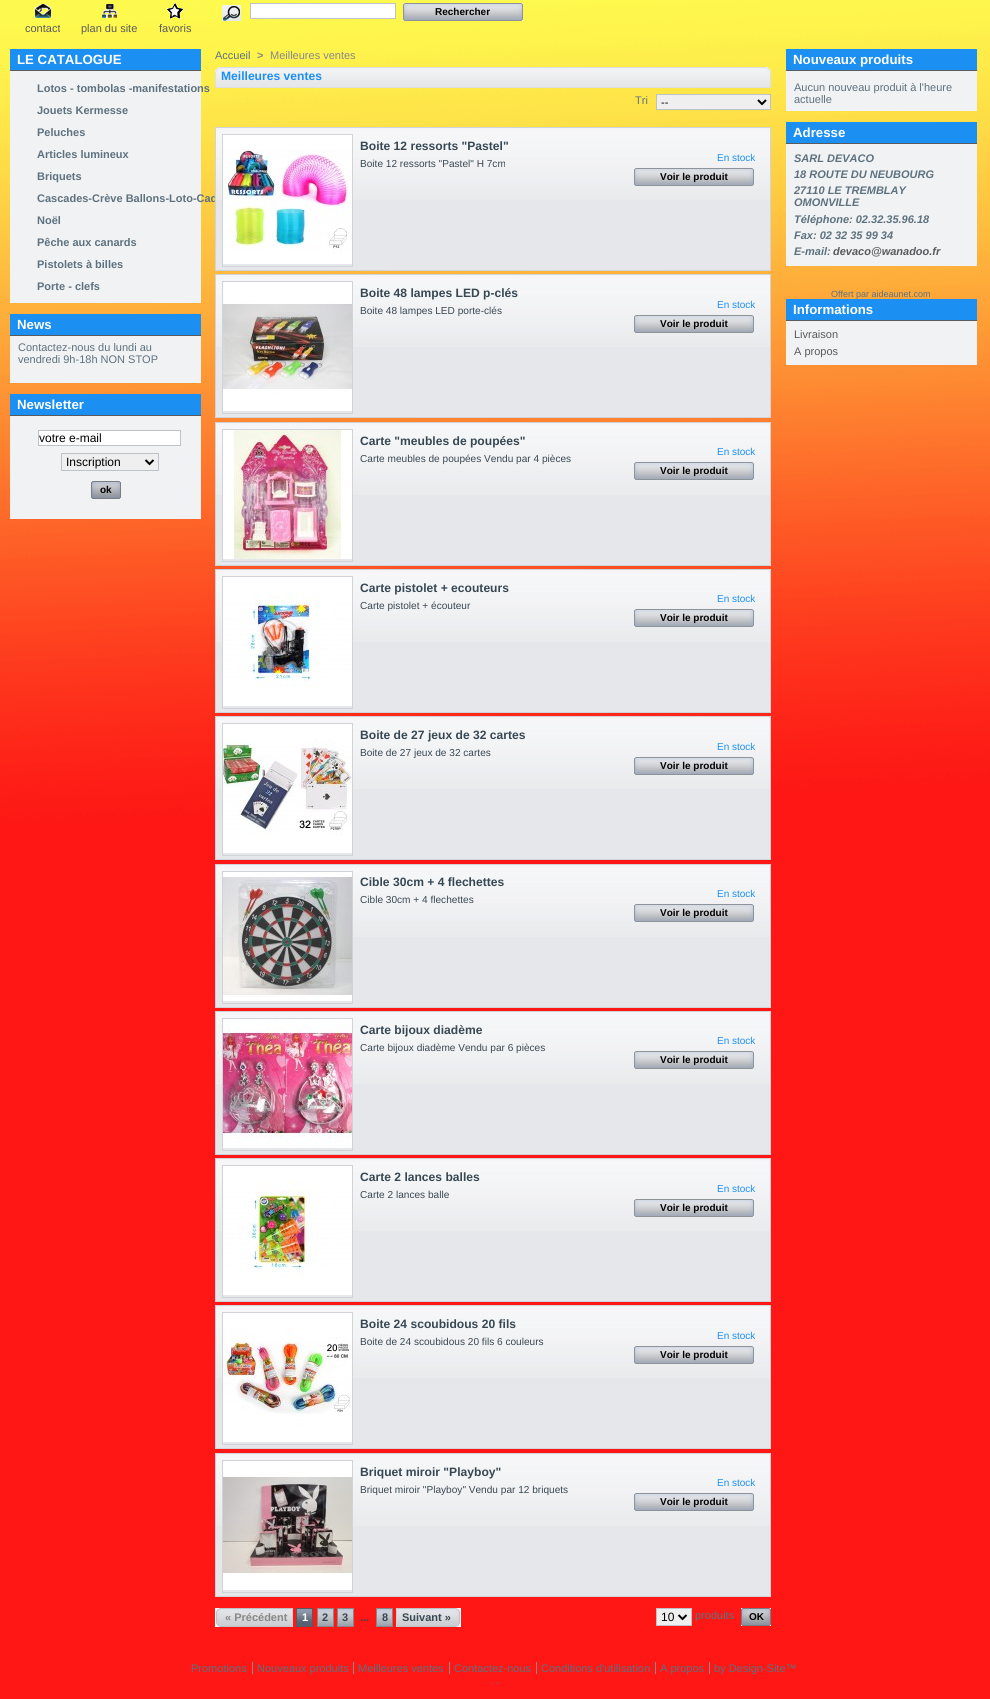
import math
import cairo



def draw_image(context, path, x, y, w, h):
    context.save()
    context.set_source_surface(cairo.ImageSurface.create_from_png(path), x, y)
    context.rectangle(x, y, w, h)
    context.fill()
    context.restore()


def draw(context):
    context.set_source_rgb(1, 1, 1)
    context.paint()
    draw_image(context, "images/1.png", 0, 0, 990, 1699)
    draw_image(context, "images/2.png", 222, 5, 19, 16)
    context.set_source_rgb(1, 1, 1)
    context.rectangle(250.5, 3.5, 145, 15)
    context.fill_preserve()
    context.set_source_rgb(189 / 255, 194 / 255, 201 / 255)
    context.set_line_width(1)
    context.stroke()
    context.set_source_rgb(239 / 255, 239 / 255, 239 / 255)
    context.rectangle(403, 3, 120, 18)
    context.fill()
    draw_image(context, "images/3.png", 403, 3, 120, 18)
    draw_image(context, "images/4.png", 35, 4, 16, 14)
    draw_image(context, "images/5.png", 102, 4, 15, 14)
    draw_image(context, "images/6.png", 167, 3, 16, 16)
    context.set_source_rgb(241 / 255, 242 / 255, 244 / 255)
    context.rectangle(10, 71, 191, 232)
    context.fill()
    context.set_source_rgb(28 / 255, 143 / 255, 242 / 255)
    context.rectangle(10, 49, 191, 21)
    context.fill()
    context.set_source_rgb(89 / 255, 90 / 255, 94 / 255)
    context.rectangle(10, 70, 191, 1)
    context.fill()
    context.set_source_rgb(241 / 255, 242 / 255, 244 / 255)
    context.rectangle(10, 336, 191, 47)
    context.fill()
    context.set_source_rgb(28 / 255, 143 / 255, 242 / 255)
    context.rectangle(10, 314, 191, 21)
    context.fill()
    context.set_source_rgb(89 / 255, 90 / 255, 94 / 255)
    context.rectangle(10, 335, 191, 1)
    context.fill()
    context.set_source_rgb(241 / 255, 242 / 255, 244 / 255)
    context.rectangle(10, 416, 191, 103)
    context.fill()
    context.set_source_rgb(28 / 255, 143 / 255, 242 / 255)
    context.rectangle(10, 394, 191, 21)
    context.fill()
    context.set_source_rgb(89 / 255, 90 / 255, 94 / 255)
    context.rectangle(10, 415, 191, 1)
    context.fill()
    context.set_source_rgb(1, 1, 1)
    context.rectangle(38.5, 430.5, 142, 15)
    context.fill_preserve()
    context.set_source_rgb(189 / 255, 194 / 255, 201 / 255)
    context.stroke()
    context.set_source_rgb(239 / 255, 239 / 255, 239 / 255)
    context.rectangle(61.5, 453.5, 97, 17)
    context.fill_preserve()
    context.set_source_rgb(189 / 255, 194 / 255, 201 / 255)
    context.stroke()
    context.new_path()
    context.move_to(145.5, 460)
    context.line_to(149.5, 464)
    context.line_to(153.5, 460)
    context.set_source_rgb(0, 0, 0)
    context.set_line_width(2)
    context.stroke()
    context.set_source_rgb(239 / 255, 239 / 255, 239 / 255)
    context.rectangle(91, 481, 30, 18)
    context.fill()
    draw_image(context, "images/7.png", 91, 481, 30, 18)
    draw_image(context, "images/8.png", 215, 67, 556, 21)
    context.rectangle(656.5, 94.5, 114, 15)
    context.fill_preserve()
    context.set_source_rgb(189 / 255, 194 / 255, 201 / 255)
    context.set_line_width(1)
    context.stroke()
    context.new_path()
    context.move_to(758, 100)
    context.line_to(762, 104)
    context.line_to(766, 100)
    context.set_source_rgb(0, 0, 0)
    context.set_line_width(2)
    context.stroke()
    context.set_source_rgb(229 / 255, 231 / 255, 235 / 255)
    context.rectangle(216, 347, 554, 70)
    context.fill()
    draw_image(context, "images/9.png", 216, 275, 554, 72)
    context.rectangle(215.5, 274.5, 555, 143)
    context.set_source_rgb(208 / 255, 211 / 255, 216 / 255)
    context.set_line_width(1)
    context.stroke()
    context.rectangle(222.5, 281.5, 130, 132)
    context.stroke()
    draw_image(context, "images/12.png", 223, 282, 129, 129)
    draw_image(context, "images/11.png", 634, 315, 120, 18)
    context.set_source_rgb(229 / 255, 231 / 255, 235 / 255)
    context.rectangle(216, 495, 554, 70)
    context.fill()
    draw_image(context, "images/9.png", 216, 423, 554, 72)
    context.rectangle(215.5, 422.5, 555, 143)
    context.set_source_rgb(208 / 255, 211 / 255, 216 / 255)
    context.stroke()
    context.rectangle(222.5, 429.5, 130, 132)
    context.stroke()
    draw_image(context, "images/13.png", 223, 430, 129, 129)
    draw_image(context, "images/14.png", 634, 462, 120, 18)
    context.set_source_rgb(229 / 255, 231 / 255, 235 / 255)
    context.rectangle(216, 642, 554, 70)
    context.fill()
    draw_image(context, "images/9.png", 216, 570, 554, 72)
    context.rectangle(215.5, 569.5, 555, 143)
    context.set_source_rgb(208 / 255, 211 / 255, 216 / 255)
    context.stroke()
    context.rectangle(222.5, 576.5, 130, 132)
    context.stroke()
    draw_image(context, "images/15.png", 223, 577, 129, 129)
    draw_image(context, "images/14.png", 634, 609, 120, 18)
    context.set_source_rgb(229 / 255, 231 / 255, 235 / 255)
    context.rectangle(216, 789, 554, 70)
    context.fill()
    draw_image(context, "images/9.png", 216, 717, 554, 72)
    context.rectangle(215.5, 716.5, 555, 143)
    context.set_source_rgb(208 / 255, 211 / 255, 216 / 255)
    context.stroke()
    context.rectangle(222.5, 723.5, 130, 132)
    context.stroke()
    draw_image(context, "images/16.png", 223, 724, 129, 129)
    draw_image(context, "images/11.png", 634, 757, 120, 18)
    context.set_source_rgb(229 / 255, 231 / 255, 235 / 255)
    context.rectangle(216, 937, 554, 70)
    context.fill()
    draw_image(context, "images/9.png", 216, 865, 554, 72)
    context.rectangle(215.5, 864.5, 555, 143)
    context.set_source_rgb(208 / 255, 211 / 255, 216 / 255)
    context.stroke()
    context.rectangle(222.5, 871.5, 130, 132)
    context.stroke()
    draw_image(context, "images/17.png", 223, 872, 129, 129)
    draw_image(context, "images/14.png", 634, 904, 120, 18)
    context.set_source_rgb(229 / 255, 231 / 255, 235 / 255)
    context.rectangle(216, 1084, 554, 70)
    context.fill()
    draw_image(context, "images/9.png", 216, 1012, 554, 72)
    context.rectangle(215.5, 1011.5, 555, 143)
    context.set_source_rgb(208 / 255, 211 / 255, 216 / 255)
    context.stroke()
    context.rectangle(222.5, 1018.5, 130, 132)
    context.stroke()
    draw_image(context, "images/18.png", 223, 1019, 129, 129)
    draw_image(context, "images/14.png", 634, 1051, 120, 18)
    context.set_source_rgb(229 / 255, 231 / 255, 235 / 255)
    context.rectangle(216, 1231, 554, 70)
    context.fill()
    draw_image(context, "images/9.png", 216, 1159, 554, 72)
    context.rectangle(215.5, 1158.5, 555, 143)
    context.set_source_rgb(208 / 255, 211 / 255, 216 / 255)
    context.stroke()
    context.rectangle(222.5, 1165.5, 130, 132)
    context.stroke()
    draw_image(context, "images/19.png", 223, 1166, 129, 129)
    draw_image(context, "images/11.png", 634, 1199, 120, 18)
    context.set_source_rgb(229 / 255, 231 / 255, 235 / 255)
    context.rectangle(216, 1378, 554, 70)
    context.fill()
    draw_image(context, "images/9.png", 216, 1306, 554, 72)
    context.rectangle(215.5, 1305.5, 555, 143)
    context.set_source_rgb(208 / 255, 211 / 255, 216 / 255)
    context.stroke()
    context.rectangle(222.5, 1312.5, 130, 132)
    context.stroke()
    draw_image(context, "images/20.png", 223, 1313, 129, 129)
    draw_image(context, "images/11.png", 634, 1346, 120, 18)
    context.set_source_rgb(229 / 255, 231 / 255, 235 / 255)
    context.rectangle(216, 1526, 554, 70)
    context.fill()
    draw_image(context, "images/9.png", 216, 1454, 554, 72)
    context.rectangle(215.5, 1453.5, 555, 143)
    context.set_source_rgb(208 / 255, 211 / 255, 216 / 255)
    context.stroke()
    context.rectangle(222.5, 1460.5, 130, 132)
    context.stroke()
    draw_image(context, "images/21.png", 223, 1461, 129, 129)
    draw_image(context, "images/14.png", 634, 1493, 120, 18)
    draw_image(context, "images/22.png", 215, 1608, 6, 19)
    draw_image(context, "images/23.png", 221, 1608, 71, 19)
    context.set_source_rgb(208 / 255, 209 / 255, 213 / 255)
    context.rectangle(292, 1608, 1, 19)
    context.fill()
    draw_image(context, "images/24.png", 297, 1609, 15, 17)
    context.rectangle(296.5, 1608.5, 16, 18)
    context.set_source_rgb(89 / 255, 90 / 255, 94 / 255)
    context.stroke()
    draw_image(context, "images/25.png", 318, 1609, 15, 17)
    context.rectangle(317.5, 1608.5, 16, 18)
    context.set_source_rgb(136 / 255, 136 / 255, 136 / 255)
    context.stroke()
    draw_image(context, "images/25.png", 338, 1609, 15, 17)
    context.rectangle(337.5, 1608.5, 16, 18)
    context.stroke()
    draw_image(context, "images/25.png", 377, 1609, 15, 17)
    context.rectangle(376.5, 1608.5, 16, 18)
    context.stroke()
    draw_image(context, "images/26.png", 455, 1608, 6, 19)
    draw_image(context, "images/27.png", 397, 1608, 58, 19)
    context.set_source_rgb(208 / 255, 209 / 255, 213 / 255)
    context.rectangle(396, 1608, 1, 19)
    context.fill()
    context.set_source_rgb(239 / 255, 239 / 255, 239 / 255)
    context.rectangle(656.5, 1608.5, 35, 17)
    context.fill_preserve()
    context.set_source_rgb(189 / 255, 194 / 255, 201 / 255)
    context.stroke()
    context.new_path()
    context.move_to(678.5, 1615)
    context.line_to(682.5, 1619)
    context.line_to(686.5, 1615)
    context.set_source_rgb(0, 0, 0)
    context.set_line_width(2)
    context.stroke()
    context.set_source_rgb(239 / 255, 239 / 255, 239 / 255)
    context.rectangle(741, 1608, 30, 18)
    context.fill()
    draw_image(context, "images/7.png", 741, 1608, 30, 18)
    context.set_source_rgb(241 / 255, 242 / 255, 244 / 255)
    context.rectangle(786, 71, 191, 40)
    context.fill()
    context.set_source_rgb(28 / 255, 143 / 255, 242 / 255)
    context.rectangle(786, 49, 191, 21)
    context.fill()
    context.set_source_rgb(89 / 255, 90 / 255, 94 / 255)
    context.rectangle(786, 70, 191, 1)
    context.fill()
    context.set_source_rgb(241 / 255, 242 / 255, 244 / 255)
    context.rectangle(786, 144, 191, 122)
    context.fill()
    context.set_source_rgb(28 / 255, 143 / 255, 242 / 255)
    context.rectangle(786, 122, 191, 21)
    context.fill()
    context.set_source_rgb(89 / 255, 90 / 255, 94 / 255)
    context.rectangle(786, 143, 191, 1)
    context.fill()
    context.set_source_rgb(241 / 255, 242 / 255, 244 / 255)
    context.rectangle(786, 321, 191, 44)
    context.fill()
    context.set_source_rgb(28 / 255, 143 / 255, 242 / 255)
    context.rectangle(786, 299, 191, 21)
    context.fill()
    context.set_source_rgb(89 / 255, 90 / 255, 94 / 255)
    context.rectangle(786, 320, 191, 1)
    context.fill()
    context.set_source_rgb(136 / 255, 136 / 255, 136 / 255)
    context.rectangle(252, 1662, 1, 12)
    context.fill()
    context.rectangle(353, 1662, 1, 12)
    context.fill()
    context.rectangle(449, 1662, 1, 12)
    context.fill()
    context.rectangle(536, 1662, 1, 12)
    context.fill()
    context.rectangle(655, 1662, 1, 12)
    context.fill()
    context.rectangle(709, 1662, 1, 12)
    context.fill()
    context.select_font_face("Liberation Sans", cairo.FontSlant.NORMAL, cairo.FontWeight.BOLD)
    context.set_font_size(10)
    context.set_source_rgb(0, 0, 0)
    context.move_to(435, 15)
    context.show_text("Rechercher")
    context.select_font_face("Liberation Sans")
    context.set_font_size(11)
    context.set_source_rgb(89 / 255, 90 / 255, 94 / 255)
    context.move_to(25, 32)
    context.show_text("contact")
    context.move_to(81, 32)
    context.show_text("plan du site")
    context.move_to(159, 32)
    context.show_text("favoris")
    context.select_font_face("Liberation Sans", cairo.FontSlant.NORMAL, cairo.FontWeight.BOLD)
    context.set_font_size(13.25)
    context.set_source_rgb(1, 1, 1)
    context.move_to(17, 64)
    context.show_text("LE CATALOGUE")
    context.set_font_size(11)
    context.set_source_rgb(93 / 255, 113 / 255, 126 / 255)
    context.move_to(37, 92)
    context.show_text("Lotos - tombolas -manifestations")
    context.move_to(37, 114)
    context.show_text("Jouets Kermesse")
    context.move_to(37, 136)
    context.show_text("Peluches")
    context.move_to(37, 158)
    context.show_text("Articles lumineux")
    context.move_to(37, 180)
    context.show_text("Briquets")
    context.move_to(37, 202)
    context.show_text("Cascades-Crève Ballons-Loto-Cad")
    context.move_to(37, 224)
    context.show_text("Noël")
    context.move_to(37, 246)
    context.show_text("Pêche aux canards")
    context.move_to(37, 268)
    context.show_text("Pistolets à billes")
    context.move_to(37, 290)
    context.show_text("Porte - clefs")
    context.set_font_size(13.25)
    context.set_source_rgb(1, 1, 1)
    context.move_to(17, 329)
    context.show_text("News")
    context.select_font_face("Liberation Sans")
    context.set_font_size(11)
    context.set_source_rgb(93 / 255, 113 / 255, 126 / 255)
    context.move_to(18, 351)
    context.show_text("Contactez-nous du lundi au")
    context.move_to(18, 363)
    context.show_text("vendredi 9h-18h NON STOP")
    context.select_font_face("Liberation Sans", cairo.FontSlant.NORMAL, cairo.FontWeight.BOLD)
    context.set_font_size(13.25)
    context.set_source_rgb(1, 1, 1)
    context.move_to(17, 409)
    context.show_text("Newsletter")
    context.select_font_face("Liberation Sans")
    context.set_font_size(12)
    context.set_source_rgb(0, 0, 0)
    context.move_to(39, 442)
    context.show_text("votre e-mail")
    context.move_to(66, 466)
    context.show_text("Inscription")
    context.select_font_face("Liberation Sans", cairo.FontSlant.NORMAL, cairo.FontWeight.BOLD)
    context.set_font_size(10)
    context.move_to(100, 493)
    context.show_text("ok")
    context.select_font_face("Liberation Sans")
    context.set_font_size(11)
    context.set_source_rgb(93 / 255, 113 / 255, 126 / 255)
    context.move_to(215, 59)
    context.show_text("Accueil")
    context.select_font_face("Liberation Sans", cairo.FontSlant.NORMAL, cairo.FontWeight.BOLD)
    context.set_source_rgb(136 / 255, 136 / 255, 136 / 255)
    context.move_to(257, 59)
    context.show_text(">")
    context.select_font_face("Liberation Sans")
    context.move_to(270, 59)
    context.show_text("Meilleures ventes")
    context.select_font_face("Liberation Sans", cairo.FontSlant.NORMAL, cairo.FontWeight.BOLD)
    context.set_font_size(12.1)
    context.set_source_rgb(28 / 255, 143 / 255, 242 / 255)
    context.move_to(221, 80)
    context.show_text("Meilleures ventes")
    context.select_font_face("Liberation Sans")
    context.set_font_size(11)
    context.set_source_rgb(93 / 255, 113 / 255, 126 / 255)
    context.move_to(635, 104)
    context.show_text("Tri")
    context.set_source_rgb(0, 0, 0)
    context.move_to(661, 106)
    context.show_text("--")
    context.set_source_rgb(229 / 255, 231 / 255, 235 / 255)
    context.rectangle(216, 200, 554, 70)
    context.fill()
    draw_image(context, "images/9.png", 216, 128, 554, 72)
    context.rectangle(215.5, 127.5, 555, 143)
    context.set_source_rgb(208 / 255, 211 / 255, 216 / 255)
    context.set_line_width(1)
    context.stroke()
    context.rectangle(222.5, 134.5, 130, 132)
    context.stroke()
    draw_image(context, "images/10.png", 223, 135, 129, 129)
    context.select_font_face("Liberation Sans", cairo.FontSlant.NORMAL, cairo.FontWeight.BOLD)
    context.set_font_size(12.1)
    context.set_source_rgb(55 / 255, 72 / 255, 83 / 255)
    context.move_to(360, 150)
    context.show_text("Boite 12 ressorts \"Pastel\"")
    context.select_font_face("Liberation Sans")
    context.set_font_size(10.1)
    context.move_to(360, 167)
    context.show_text("Boite 12 ressorts \"Pastel\" H 7cm")
    context.set_font_size(10)
    context.set_source_rgb(28 / 255, 143 / 255, 242 / 255)
    context.move_to(717, 161)
    context.show_text("En stock")
    draw_image(context, "images/11.png", 634, 168, 120, 18)
    context.select_font_face("Liberation Sans", cairo.FontSlant.NORMAL, cairo.FontWeight.BOLD)
    context.set_source_rgb(0, 0, 0)
    context.move_to(660, 180)
    context.show_text("Voir le produit")
    context.set_font_size(12.1)
    context.set_source_rgb(55 / 255, 72 / 255, 83 / 255)
    context.move_to(360, 297)
    context.show_text("Boite 48 lampes LED p-clés")
    context.select_font_face("Liberation Sans")
    context.set_font_size(10.1)
    context.move_to(360, 314)
    context.show_text("Boite 48 lampes LED porte-clés")
    context.set_font_size(10)
    context.set_source_rgb(28 / 255, 143 / 255, 242 / 255)
    context.move_to(717, 308)
    context.show_text("En stock")
    context.select_font_face("Liberation Sans", cairo.FontSlant.NORMAL, cairo.FontWeight.BOLD)
    context.set_source_rgb(0, 0, 0)
    context.move_to(660, 327)
    context.show_text("Voir le produit")
    context.set_font_size(12.1)
    context.set_source_rgb(55 / 255, 72 / 255, 83 / 255)
    context.move_to(360, 445)
    context.show_text("Carte \"meubles de poupées\"")
    context.select_font_face("Liberation Sans")
    context.set_font_size(10.1)
    context.move_to(360, 462)
    context.show_text("Carte meubles de poupées Vendu par 4 pièces")
    context.set_font_size(10)
    context.set_source_rgb(28 / 255, 143 / 255, 242 / 255)
    context.move_to(717, 455)
    context.show_text("En stock")
    context.select_font_face("Liberation Sans", cairo.FontSlant.NORMAL, cairo.FontWeight.BOLD)
    context.set_source_rgb(0, 0, 0)
    context.move_to(660, 474)
    context.show_text("Voir le produit")
    context.set_font_size(12.1)
    context.set_source_rgb(55 / 255, 72 / 255, 83 / 255)
    context.move_to(360, 592)
    context.show_text("Carte pistolet + ecouteurs")
    context.select_font_face("Liberation Sans")
    context.set_font_size(10.1)
    context.move_to(360, 609)
    context.show_text("Carte pistolet + écouteur")
    context.set_font_size(10)
    context.set_source_rgb(28 / 255, 143 / 255, 242 / 255)
    context.move_to(717, 602)
    context.show_text("En stock")
    context.select_font_face("Liberation Sans", cairo.FontSlant.NORMAL, cairo.FontWeight.BOLD)
    context.set_source_rgb(0, 0, 0)
    context.move_to(660, 621)
    context.show_text("Voir le produit")
    context.set_font_size(12.1)
    context.set_source_rgb(55 / 255, 72 / 255, 83 / 255)
    context.move_to(360, 739)
    context.show_text("Boite de 27 jeux de 32 cartes")
    context.select_font_face("Liberation Sans")
    context.set_font_size(10.1)
    context.move_to(360, 756)
    context.show_text("Boite de 27 jeux de 32 cartes")
    context.set_font_size(10)
    context.set_source_rgb(28 / 255, 143 / 255, 242 / 255)
    context.move_to(717, 750)
    context.show_text("En stock")
    context.select_font_face("Liberation Sans", cairo.FontSlant.NORMAL, cairo.FontWeight.BOLD)
    context.set_source_rgb(0, 0, 0)
    context.move_to(660, 769)
    context.show_text("Voir le produit")
    context.set_font_size(12.1)
    context.set_source_rgb(55 / 255, 72 / 255, 83 / 255)
    context.move_to(360, 886)
    context.show_text("Cible 30cm + 4 flechettes")
    context.select_font_face("Liberation Sans")
    context.set_font_size(10.1)
    context.move_to(360, 903)
    context.show_text("Cible 30cm + 4 flechettes")
    context.set_font_size(10)
    context.set_source_rgb(28 / 255, 143 / 255, 242 / 255)
    context.move_to(717, 897)
    context.show_text("En stock")
    context.select_font_face("Liberation Sans", cairo.FontSlant.NORMAL, cairo.FontWeight.BOLD)
    context.set_source_rgb(0, 0, 0)
    context.move_to(660, 916)
    context.show_text("Voir le produit")
    context.set_font_size(12.1)
    context.set_source_rgb(55 / 255, 72 / 255, 83 / 255)
    context.move_to(360, 1034)
    context.show_text("Carte bijoux diadème")
    context.select_font_face("Liberation Sans")
    context.set_font_size(10.1)
    context.move_to(360, 1051)
    context.show_text("Carte bijoux diadème Vendu par 6 pièces")
    context.set_font_size(10)
    context.set_source_rgb(28 / 255, 143 / 255, 242 / 255)
    context.move_to(717, 1044)
    context.show_text("En stock")
    context.select_font_face("Liberation Sans", cairo.FontSlant.NORMAL, cairo.FontWeight.BOLD)
    context.set_source_rgb(0, 0, 0)
    context.move_to(660, 1063)
    context.show_text("Voir le produit")
    context.set_font_size(12.1)
    context.set_source_rgb(55 / 255, 72 / 255, 83 / 255)
    context.move_to(360, 1181)
    context.show_text("Carte 2 lances balles")
    context.select_font_face("Liberation Sans")
    context.set_font_size(10.1)
    context.move_to(360, 1198)
    context.show_text("Carte 2 lances balle")
    context.set_font_size(10)
    context.set_source_rgb(28 / 255, 143 / 255, 242 / 255)
    context.move_to(717, 1192)
    context.show_text("En stock")
    context.select_font_face("Liberation Sans", cairo.FontSlant.NORMAL, cairo.FontWeight.BOLD)
    context.set_source_rgb(0, 0, 0)
    context.move_to(660, 1211)
    context.show_text("Voir le produit")
    context.set_font_size(12.1)
    context.set_source_rgb(55 / 255, 72 / 255, 83 / 255)
    context.move_to(360, 1328)
    context.show_text("Boite 24 scoubidous 20 fils")
    context.select_font_face("Liberation Sans")
    context.set_font_size(10.1)
    context.move_to(360, 1345)
    context.show_text("Boite de 24 scoubidous 20 fils 6 couleurs")
    context.set_font_size(10)
    context.set_source_rgb(28 / 255, 143 / 255, 242 / 255)
    context.move_to(717, 1339)
    context.show_text("En stock")
    context.select_font_face("Liberation Sans", cairo.FontSlant.NORMAL, cairo.FontWeight.BOLD)
    context.set_source_rgb(0, 0, 0)
    context.move_to(660, 1358)
    context.show_text("Voir le produit")
    context.set_font_size(12.1)
    context.set_source_rgb(55 / 255, 72 / 255, 83 / 255)
    context.move_to(360, 1476)
    context.show_text("Briquet miroir \"Playboy\"")
    context.select_font_face("Liberation Sans")
    context.set_font_size(10.1)
    context.move_to(360, 1493)
    context.show_text("Briquet miroir \"Playboy\" Vendu par 12 briquets")
    context.set_font_size(10)
    context.set_source_rgb(28 / 255, 143 / 255, 242 / 255)
    context.move_to(717, 1486)
    context.show_text("En stock")
    context.select_font_face("Liberation Sans", cairo.FontSlant.NORMAL, cairo.FontWeight.BOLD)
    context.set_source_rgb(0, 0, 0)
    context.move_to(660, 1505)
    context.show_text("Voir le produit")
    context.set_font_size(11)
    context.set_source_rgb(136 / 255, 136 / 255, 136 / 255)
    context.move_to(225, 1621)
    context.show_text("« Précédent")
    context.set_source_rgb(1, 1, 1)
    context.move_to(302, 1621)
    context.show_text("1")
    context.set_source_rgb(55 / 255, 72 / 255, 83 / 255)
    context.move_to(322, 1621)
    context.show_text("2")
    context.move_to(342, 1621)
    context.show_text("3")
    context.move_to(360, 1621)
    context.show_text("...")
    context.move_to(382, 1621)
    context.show_text("8")
    context.move_to(402, 1621)
    context.show_text("Suivant »")
    context.select_font_face("Liberation Sans")
    context.set_font_size(12)
    context.set_source_rgb(0, 0, 0)
    context.move_to(661, 1621)
    context.show_text("10")
    context.set_font_size(11)
    context.set_source_rgb(93 / 255, 113 / 255, 126 / 255)
    context.move_to(695, 1619)
    context.show_text("produits")
    context.select_font_face("Liberation Sans", cairo.FontSlant.NORMAL, cairo.FontWeight.BOLD)
    context.set_font_size(10)
    context.set_source_rgb(0, 0, 0)
    context.move_to(749, 1620)
    context.show_text("OK")
    context.set_font_size(13.25)
    context.set_source_rgb(1, 1, 1)
    context.move_to(793, 64)
    context.show_text("Nouveaux produits")
    context.select_font_face("Liberation Sans")
    context.set_font_size(11)
    context.set_source_rgb(93 / 255, 113 / 255, 126 / 255)
    context.move_to(794, 91)
    context.show_text("Aucun nouveau produit à l'heure")
    context.move_to(794, 103)
    context.show_text("actuelle")
    context.select_font_face("Liberation Sans", cairo.FontSlant.NORMAL, cairo.FontWeight.BOLD)
    context.set_font_size(13.25)
    context.set_source_rgb(1, 1, 1)
    context.move_to(793, 137)
    context.show_text("Adresse")
    context.select_font_face("Liberation Sans", cairo.FontSlant.ITALIC, cairo.FontWeight.BOLD)
    context.set_font_size(11)
    context.set_source_rgb(93 / 255, 113 / 255, 126 / 255)
    context.move_to(794, 162)
    context.show_text("SARL DEVACO")
    context.move_to(794, 178)
    context.show_text("18 ROUTE DU NEUBOURG")
    context.move_to(794, 194)
    context.show_text("27110 LE TREMBLAY")
    context.move_to(794, 206)
    context.show_text("OMONVILLE")
    context.move_to(794, 223)
    context.show_text("Téléphone: 02.32.35.96.18")
    context.move_to(794, 239)
    context.show_text("Fax: 02 32 35 99 34")
    context.move_to(794, 255)
    context.show_text("E-mail:")
    context.set_source_rgb(89 / 255, 90 / 255, 94 / 255)
    context.move_to(833, 255)
    context.show_text("devaco@wanadoo.fr")
    context.select_font_face("Liberation Sans")
    context.set_font_size(9)
    context.set_source_rgb(93 / 255, 113 / 255, 126 / 255)
    context.move_to(831, 297)
    context.show_text("Offert par aideaunet.com")
    context.select_font_face("Liberation Sans", cairo.FontSlant.NORMAL, cairo.FontWeight.BOLD)
    context.set_font_size(13.25)
    context.set_source_rgb(1, 1, 1)
    context.move_to(793, 314)
    context.show_text("Informations")
    context.select_font_face("Liberation Sans")
    context.set_font_size(11)
    context.set_source_rgb(89 / 255, 90 / 255, 94 / 255)
    context.move_to(794, 338)
    context.show_text("Livraison")
    context.move_to(794, 355)
    context.show_text("A propos")
    context.set_source_rgb(93 / 255, 113 / 255, 126 / 255)
    context.move_to(191, 1672)
    context.show_text("Promotions")
    context.move_to(257, 1672)
    context.show_text("Nouveaux produits")
    context.move_to(358, 1672)
    context.show_text("Meilleures ventes")
    context.move_to(454, 1672)
    context.show_text("Contactez-nous")
    context.move_to(541, 1672)
    context.show_text("Conditions d'utilisation")
    context.move_to(660, 1672)
    context.show_text("A propos")
    context.move_to(714, 1672)
    context.show_text("by Design-Site™")
    context.move_to(490, 1684)
    context.show_text(". .")


surface = cairo.ImageSurface(cairo.Format.RGB24, 990, 1699)
context = cairo.Context(surface)
options = cairo.FontOptions()
options.set_hint_metrics(cairo.HintMetrics.OFF)
options.set_hint_style(cairo.HintStyle.NONE)
context.set_font_options(options)
context.set_miter_limit(4)
draw(context)
surface.write_to_png("out.png")
